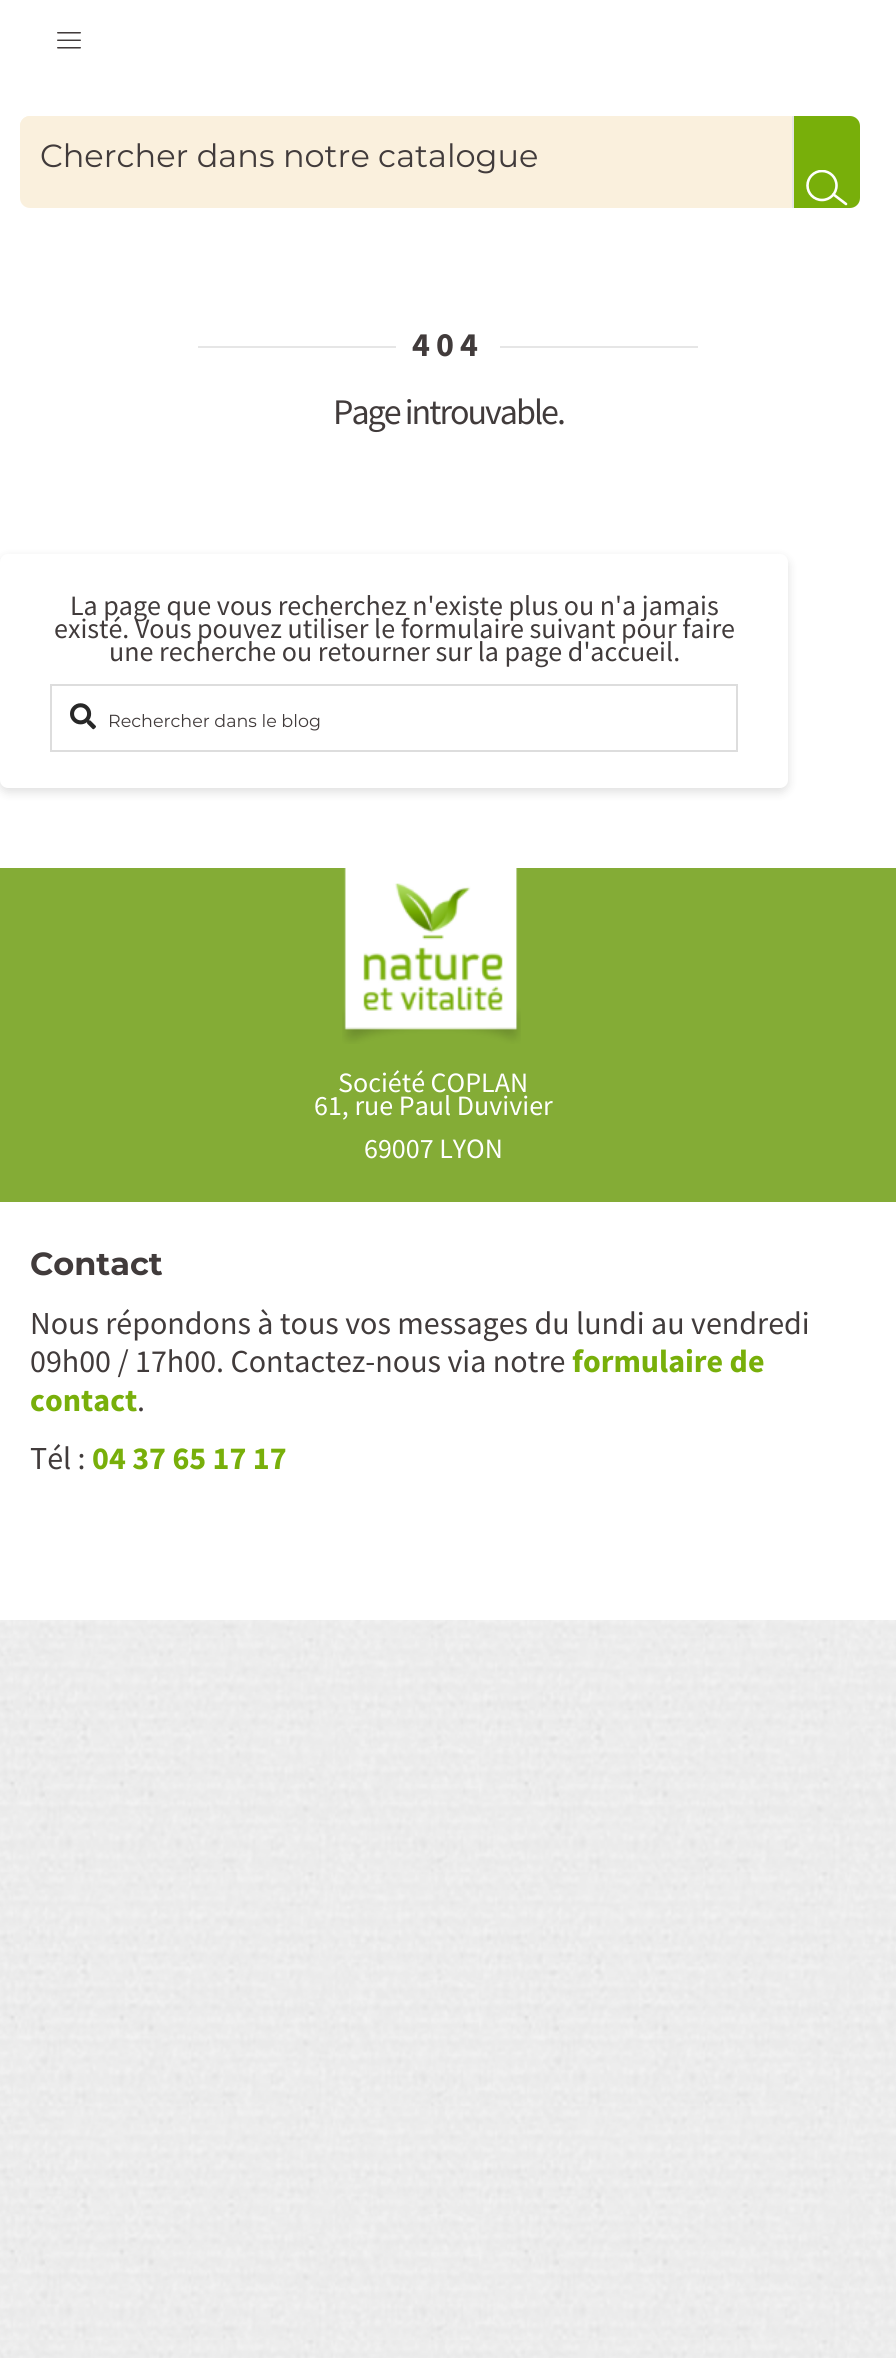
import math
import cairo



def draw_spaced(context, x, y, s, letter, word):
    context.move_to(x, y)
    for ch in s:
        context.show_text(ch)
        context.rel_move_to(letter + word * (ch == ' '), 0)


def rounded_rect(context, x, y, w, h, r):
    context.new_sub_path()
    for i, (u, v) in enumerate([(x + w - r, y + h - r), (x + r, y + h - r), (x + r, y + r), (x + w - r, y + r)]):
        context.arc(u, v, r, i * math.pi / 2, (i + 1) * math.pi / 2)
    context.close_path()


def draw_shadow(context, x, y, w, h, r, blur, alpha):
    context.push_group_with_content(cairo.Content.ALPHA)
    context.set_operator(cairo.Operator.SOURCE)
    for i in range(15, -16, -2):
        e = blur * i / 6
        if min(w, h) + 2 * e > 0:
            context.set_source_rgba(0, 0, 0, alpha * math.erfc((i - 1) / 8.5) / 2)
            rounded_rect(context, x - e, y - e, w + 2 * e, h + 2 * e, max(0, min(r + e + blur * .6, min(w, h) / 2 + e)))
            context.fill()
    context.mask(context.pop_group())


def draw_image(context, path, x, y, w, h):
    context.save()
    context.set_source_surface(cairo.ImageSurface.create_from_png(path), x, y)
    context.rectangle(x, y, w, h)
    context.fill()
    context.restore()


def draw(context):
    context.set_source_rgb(1, 1, 1)
    context.paint()
    draw_image(context, "images/1.png", 0, 1620, 896, 738)
    draw_image(context, "images/2.png", 57, 32, 24, 17)
    context.set_source_rgb(250 / 255, 240 / 255, 221 / 255)
    rounded_rect(context, 20, 116, 780, 92, 10)
    context.fill()
    rounded_rect(context, 20, 116, 772, 84, 10)
    context.fill()
    context.set_source_rgb(120 / 255, 175 / 255, 10 / 255)
    context.new_path()
    context.move_to(792, 116)
    context.line_to(850, 116)
    context.curve_to(855.5, 116, 860, 120.5, 860, 126)
    context.line_to(860, 198)
    context.curve_to(860, 203.5, 855.5, 208, 850, 208)
    context.line_to(792, 208)
    context.close_path()
    context.fill()
    context.set_source_rgb(229 / 255, 229 / 255, 229 / 255)
    context.rectangle(792, 116, 2, 92)
    context.fill()
    context.save()
    context.rectangle(806, 170, 42, 36)
    context.clip()
    context.arc(822, 185.5, 14.5, 0, 2 * math.pi)
    context.set_source_rgb(1, 1, 1)
    context.set_line_width(2.6)
    context.stroke()
    context.restore()
    context.new_path()
    context.move_to(846, 204)
    context.line_to(833.5, 194.5)
    context.set_source_rgb(1, 1, 1)
    context.set_line_width(2.6)
    context.set_line_cap(cairo.LineCap.ROUND)
    context.stroke()
    context.set_source_rgb(230 / 255, 230 / 255, 230 / 255)
    context.rectangle(198, 346, 198, 2)
    context.fill()
    context.rectangle(500, 346, 198, 2)
    context.fill()
    context.set_source_rgb(0, 0, 0)
    draw_shadow(context, 0, 558, 788, 234, 8, 5, 0.13)
    context.set_source_rgb(1, 1, 1)
    rounded_rect(context, 0, 554, 788, 234, 8)
    context.fill()
    context.rectangle(51, 685, 686, 66)
    context.set_source_rgb(221 / 255, 221 / 255, 221 / 255)
    context.set_line_width(2)
    context.set_line_cap(cairo.LineCap.BUTT)
    context.stroke()
    draw_image(context, "images/3.png", 70, 703, 26, 27)
    context.set_source_rgb(132 / 255, 172 / 255, 54 / 255)
    context.rectangle(0, 868, 896, 334)
    context.fill()
    draw_image(context, "images/4.png", 342, 868, 179, 176)
    context.select_font_face("Montserrat")
    context.set_font_size(32)
    context.set_source_rgb(65 / 255, 59 / 255, 59 / 255)
    context.move_to(40, 167)
    context.show_text("Chercher dans notre catalogue")
    context.select_font_face("Source Sans Pro", cairo.FontSlant.NORMAL, cairo.FontWeight.BOLD)
    context.set_font_size(34)
    draw_spaced(context, 412, 356, "404", 6, 0)
    context.select_font_face("Source Sans Pro")
    context.set_font_size(36)
    draw_spaced(context, 333, 424, "Page introuvable.", -2, 0)
    context.set_font_size(28)
    context.move_to(70, 615)
    context.show_text("La page que vous recherchez n'existe plus ou n'a jamais")
    context.move_to(54, 638)
    context.show_text("existé. Vous pouvez utiliser le formulaire suivant pour faire")
    context.move_to(109, 661)
    context.show_text("une recherche ou retourner sur la page d'accueil.")
    context.select_font_face("Montserrat")
    context.set_font_size(17.5)
    context.move_to(108, 727)
    context.show_text("Rechercher dans le blog")
    context.select_font_face("Source Sans Pro")
    context.set_font_size(28)
    context.set_source_rgb(1, 1, 1)
    context.move_to(338, 1092)
    context.show_text("Société COPLAN")
    context.move_to(314, 1115)
    context.show_text("61, rue Paul Duvivier")
    context.move_to(364, 1158)
    context.show_text("69007 LYON")
    context.select_font_face("Montserrat", cairo.FontSlant.NORMAL, cairo.FontWeight.BOLD)
    context.set_font_size(32)
    context.set_source_rgb(65 / 255, 59 / 255, 59 / 255)
    context.move_to(30, 1275)
    context.show_text("Contact")
    context.select_font_face("Source Sans Pro")
    context.move_to(30, 1334)
    context.show_text("Nous répondons à tous vos messages du lundi au vendredi")
    context.move_to(30, 1372)
    context.show_text("09h00 / 17h00. Contactez-nous via notre")
    context.select_font_face("Source Sans Pro", cairo.FontSlant.NORMAL, cairo.FontWeight.BOLD)
    context.set_source_rgb(120 / 255, 175 / 255, 10 / 255)
    context.move_to(572, 1372)
    context.show_text("formulaire de")
    context.move_to(30, 1411)
    context.show_text("contact")
    context.select_font_face("Source Sans Pro")
    context.set_source_rgb(65 / 255, 59 / 255, 59 / 255)
    context.move_to(137, 1411)
    context.show_text(".")
    context.move_to(30, 1469)
    context.show_text("Tél :")
    context.select_font_face("Source Sans Pro", cairo.FontSlant.NORMAL, cairo.FontWeight.BOLD)
    context.set_source_rgb(120 / 255, 175 / 255, 10 / 255)
    context.move_to(92, 1469)
    context.show_text("04 37 65 17 17")


surface = cairo.ImageSurface(cairo.Format.RGB24, 896, 2358)
context = cairo.Context(surface)
options = cairo.FontOptions()
options.set_hint_metrics(cairo.HintMetrics.OFF)
options.set_hint_style(cairo.HintStyle.NONE)
context.set_font_options(options)
context.set_miter_limit(4)
draw(context)
surface.write_to_png("out.png")
